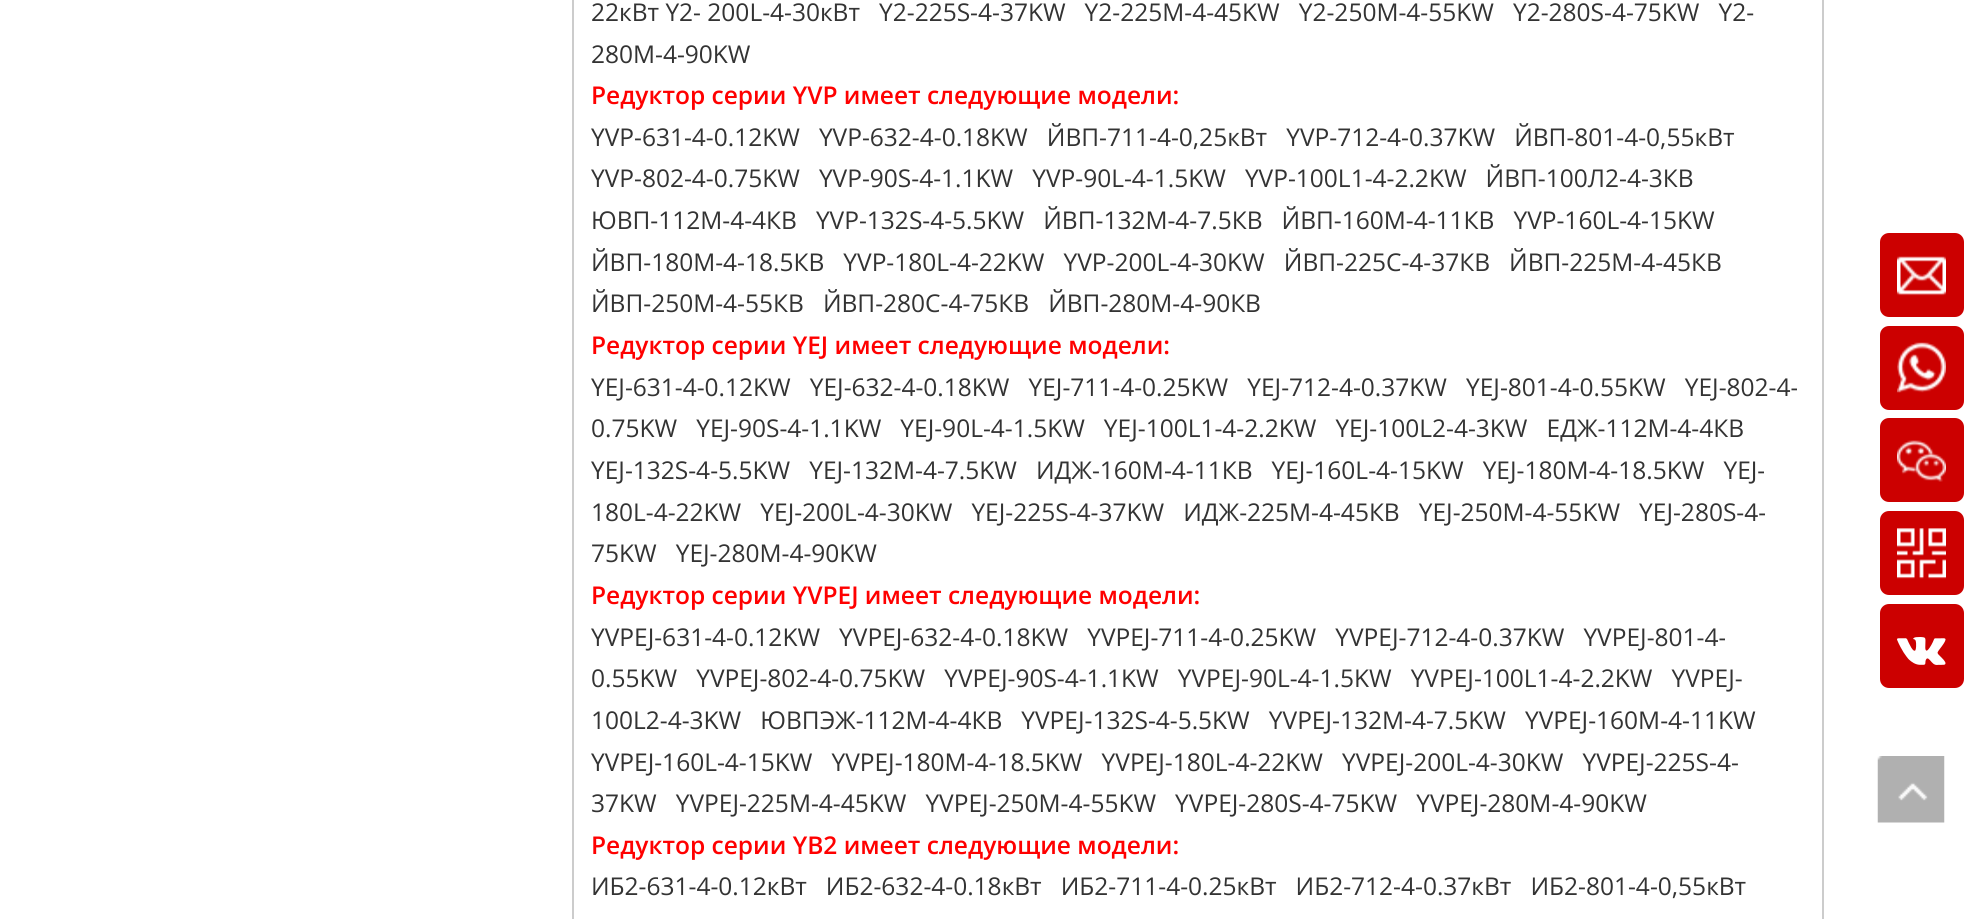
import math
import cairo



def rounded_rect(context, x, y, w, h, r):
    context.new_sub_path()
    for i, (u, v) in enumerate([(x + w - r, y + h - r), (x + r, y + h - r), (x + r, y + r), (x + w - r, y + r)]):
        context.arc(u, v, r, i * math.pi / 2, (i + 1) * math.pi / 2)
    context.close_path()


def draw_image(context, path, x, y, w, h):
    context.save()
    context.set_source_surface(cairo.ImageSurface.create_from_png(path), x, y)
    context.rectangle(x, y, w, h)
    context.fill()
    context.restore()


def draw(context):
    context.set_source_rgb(1, 1, 1)
    context.paint()
    context.rectangle(573, -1, 1250, 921)
    context.set_source_rgb(204 / 255, 204 / 255, 204 / 255)
    context.stroke()
    context.set_source_rgb(204 / 255, 0, 0)
    rounded_rect(context, 1880, 233, 84, 84, 9)
    context.fill()
    draw_image(context, "images/1.png", 1897, 256, 49, 40)
    rounded_rect(context, 1880, 326, 84, 84, 9)
    context.fill()
    draw_image(context, "images/2.png", 1897, 342, 49, 51)
    rounded_rect(context, 1880, 418, 84, 84, 9)
    context.fill()
    draw_image(context, "images/3.png", 1897, 440, 49, 42)
    rounded_rect(context, 1880, 511, 84, 84, 9)
    context.fill()
    draw_image(context, "images/4.png", 1897, 528, 49, 51)
    rounded_rect(context, 1880, 604, 84, 84, 9)
    context.fill()
    draw_image(context, "images/5.png", 1897, 637, 49, 28)
    draw_image(context, "images/6.png", 1877, 756, 68, 67)
    context.select_font_face("Open Sans")
    context.set_font_size(24.5)
    context.set_source_rgb(51 / 255, 51 / 255, 51 / 255)
    context.move_to(591, 21)
    context.show_text("22кВт Y2- 200L-4-30кВт   Y2-225S-4-37KW   Y2-225M-4-45KW   Y2-250M-4-55KW   Y2-280S-4-75KW   Y2-")
    context.move_to(591, 63)
    context.show_text("280M-4-90KW")
    context.select_font_face("Open Sans SemiBold")
    context.set_source_rgb(1, 0, 0)
    context.move_to(591, 104)
    context.show_text("Редуктор серии YVP имеет следующие модели:")
    context.select_font_face("Open Sans")
    context.set_source_rgb(51 / 255, 51 / 255, 51 / 255)
    context.move_to(591, 146)
    context.show_text("YVP-631-4-0.12KW   YVP-632-4-0.18KW   ЙВП-711-4-0,25кВт   YVP-712-4-0.37KW   ЙВП-801-4-0,55кВт")
    context.move_to(591, 187)
    context.show_text("YVP-802-4-0.75KW   YVP-90S-4-1.1KW   YVP-90L-4-1.5KW   YVP-100L1-4-2.2KW   ЙВП-100Л2-4-3КВ")
    context.move_to(591, 229)
    context.show_text("ЮВП-112М-4-4КВ   YVP-132S-4-5.5KW   ЙВП-132М-4-7.5КВ   ЙВП-160М-4-11КВ   YVP-160L-4-15KW")
    context.move_to(591, 271)
    context.show_text("ЙВП-180М-4-18.5КВ   YVP-180L-4-22KW   YVP-200L-4-30KW   ЙВП-225С-4-37КВ   ЙВП-225М-4-45КВ")
    context.move_to(591, 312)
    context.show_text("ЙВП-250М-4-55КВ   ЙВП-280С-4-75КВ   ЙВП-280М-4-90КВ")
    context.select_font_face("Open Sans SemiBold")
    context.set_source_rgb(1, 0, 0)
    context.move_to(591, 354)
    context.show_text("Редуктор серии YEJ имеет следующие модели:")
    context.select_font_face("Open Sans")
    context.set_source_rgb(51 / 255, 51 / 255, 51 / 255)
    context.move_to(591, 396)
    context.show_text("YEJ-631-4-0.12KW   YEJ-632-4-0.18KW   YEJ-711-4-0.25KW   YEJ-712-4-0.37KW   YEJ-801-4-0.55KW   YEJ-802-4-")
    context.move_to(591, 437)
    context.show_text("0.75KW   YEJ-90S-4-1.1KW   YEJ-90L-4-1.5KW   YEJ-100L1-4-2.2KW   YEJ-100L2-4-3KW   ЕДЖ-112М-4-4КВ")
    context.move_to(591, 479)
    context.show_text("YEJ-132S-4-5.5KW   YEJ-132M-4-7.5KW   ИДЖ-160М-4-11КВ   YEJ-160L-4-15KW   YEJ-180M-4-18.5KW   YEJ-")
    context.move_to(591, 521)
    context.show_text("180L-4-22KW   YEJ-200L-4-30KW   YEJ-225S-4-37KW   ИДЖ-225М-4-45КВ   YEJ-250M-4-55KW   YEJ-280S-4-")
    context.move_to(591, 562)
    context.show_text("75KW   YEJ-280M-4-90KW")
    context.select_font_face("Open Sans SemiBold")
    context.set_source_rgb(1, 0, 0)
    context.move_to(591, 604)
    context.show_text("Редуктор серии YVPEJ имеет следующие модели:")
    context.select_font_face("Open Sans")
    context.set_source_rgb(51 / 255, 51 / 255, 51 / 255)
    context.move_to(591, 646)
    context.show_text("YVPEJ-631-4-0.12KW   YVPEJ-632-4-0.18KW   YVPEJ-711-4-0.25KW   YVPEJ-712-4-0.37KW   YVPEJ-801-4-")
    context.move_to(591, 687)
    context.show_text("0.55KW   YVPEJ-802-4-0.75KW   YVPEJ-90S-4-1.1KW   YVPEJ-90L-4-1.5KW   YVPEJ-100L1-4-2.2KW   YVPEJ-")
    context.move_to(591, 729)
    context.show_text("100L2-4-3KW   ЮВПЭЖ-112М-4-4КВ   YVPEJ-132S-4-5.5KW   YVPEJ-132M-4-7.5KW   YVPEJ-160M-4-11KW")
    context.move_to(591, 771)
    context.show_text("YVPEJ-160L-4-15KW   YVPEJ-180M-4-18.5KW   YVPEJ-180L-4-22KW   YVPEJ-200L-4-30KW   YVPEJ-225S-4-")
    context.move_to(591, 812)
    context.show_text("37KW   YVPEJ-225M-4-45KW   YVPEJ-250M-4-55KW   YVPEJ-280S-4-75KW   YVPEJ-280M-4-90KW")
    context.select_font_face("Open Sans SemiBold")
    context.set_source_rgb(1, 0, 0)
    context.move_to(591, 854)
    context.show_text("Редуктор серии YB2 имеет следующие модели:")
    context.select_font_face("Open Sans")
    context.set_source_rgb(51 / 255, 51 / 255, 51 / 255)
    context.move_to(591, 895)
    context.show_text("ИБ2-631-4-0.12кВт   ИБ2-632-4-0.18кВт   ИБ2-711-4-0.25кВт   ИБ2-712-4-0.37кВт   ИБ2-801-4-0,55кВт")


surface = cairo.ImageSurface(cairo.Format.RGB24, 1965, 919)
context = cairo.Context(surface)
options = cairo.FontOptions()
options.set_hint_metrics(cairo.HintMetrics.OFF)
options.set_hint_style(cairo.HintStyle.NONE)
context.set_font_options(options)
context.set_miter_limit(4)
draw(context)
surface.write_to_png("out.png")
